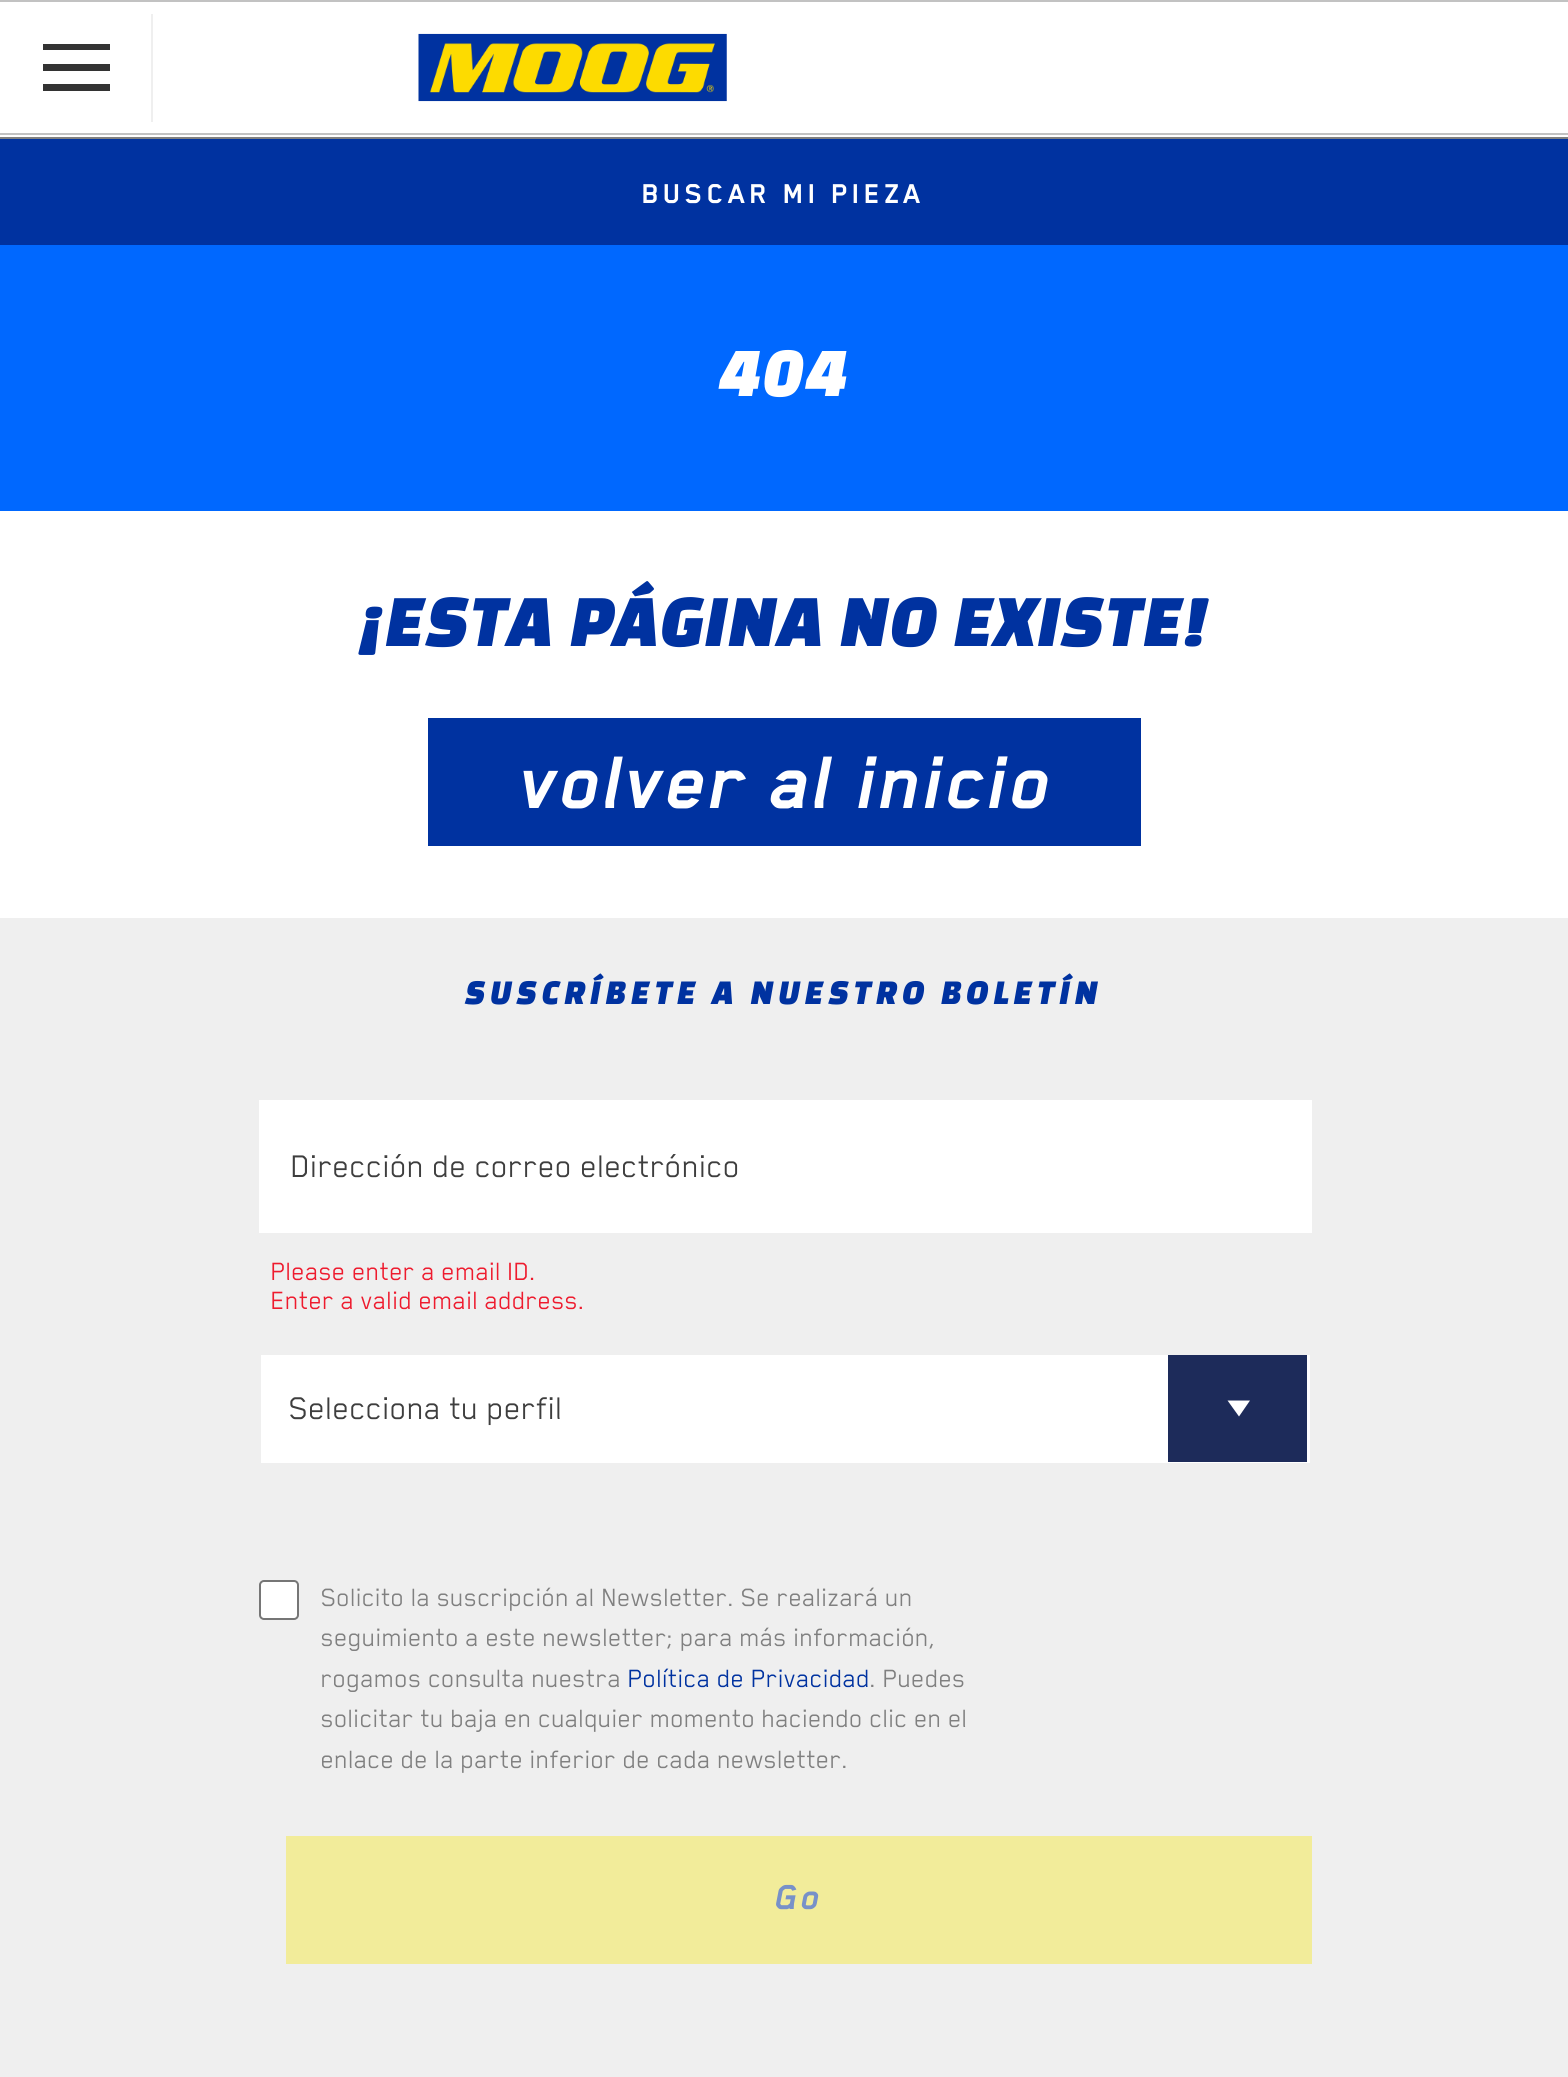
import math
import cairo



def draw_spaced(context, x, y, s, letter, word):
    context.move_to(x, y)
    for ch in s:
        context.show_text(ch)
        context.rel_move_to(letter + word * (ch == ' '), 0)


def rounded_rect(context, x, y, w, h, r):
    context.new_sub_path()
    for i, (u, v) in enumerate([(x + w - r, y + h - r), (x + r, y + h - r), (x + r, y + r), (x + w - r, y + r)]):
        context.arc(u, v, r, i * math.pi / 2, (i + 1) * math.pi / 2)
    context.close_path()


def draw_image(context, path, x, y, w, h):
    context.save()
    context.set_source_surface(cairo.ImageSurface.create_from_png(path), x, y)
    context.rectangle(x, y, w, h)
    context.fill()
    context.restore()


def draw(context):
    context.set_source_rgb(1, 1, 1)
    context.paint()
    context.set_source_rgb(194 / 255, 194 / 255, 194 / 255)
    context.rectangle(0, 0, 1568, 2)
    context.fill()
    context.rectangle(0, 133, 1568, 2)
    context.fill()
    context.set_source_rgb(239 / 255, 239 / 255, 239 / 255)
    context.rectangle(151, 14, 2, 108)
    context.fill()
    context.set_source_rgb(51 / 255, 51 / 255, 51 / 255)
    context.new_path()
    context.move_to(43, 64)
    context.line_to(110, 64)
    context.line_to(110, 71)
    context.line_to(43, 71)
    context.close_path()
    context.move_to(43, 84)
    context.line_to(110, 84)
    context.line_to(110, 91)
    context.line_to(43, 91)
    context.close_path()
    context.move_to(43, 44)
    context.line_to(110, 44)
    context.line_to(110, 50)
    context.line_to(43, 50)
    context.close_path()
    context.fill()
    draw_image(context, "images/1.png", 418, 33, 309, 69)
    context.set_source_rgb(0, 50 / 255, 160 / 255)
    context.rectangle(0, 139, 1568, 106)
    context.fill()
    context.set_source_rgb(128 / 255, 128 / 255, 128 / 255)
    context.rectangle(0, 137, 1568, 2)
    context.fill()
    context.set_source_rgb(0, 104 / 255, 1)
    context.rectangle(0, 245, 1568, 266)
    context.fill()
    context.set_source_rgb(0, 50 / 255, 160 / 255)
    context.rectangle(428, 718, 713, 128)
    context.fill()
    context.set_source_rgb(239 / 255, 239 / 255, 239 / 255)
    context.rectangle(0, 918, 1568, 1159)
    context.fill()
    context.set_source_rgb(1, 1, 1)
    context.rectangle(259, 1100, 1053, 133)
    context.fill()
    context.rectangle(261, 1355, 1049, 108)
    context.fill()
    context.set_source_rgb(29 / 255, 43 / 255, 90 / 255)
    context.rectangle(1168, 1355, 139, 107)
    context.fill()
    context.set_source_rgb(1, 1, 1)
    context.new_path()
    context.move_to(1227.5, 1400.5)
    context.line_to(1250, 1400.5)
    context.line_to(1239, 1416.5)
    context.close_path()
    context.fill()
    rounded_rect(context, 260, 1581, 38, 38, 4)
    context.fill_preserve()
    context.set_source_rgb(118 / 255, 118 / 255, 118 / 255)
    context.stroke()
    context.set_source_rgb(242 / 255, 236 / 255, 154 / 255)
    context.rectangle(286, 1836, 1026, 128)
    context.fill()
    context.select_font_face("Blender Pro", cairo.FontSlant.NORMAL, cairo.FontWeight.BOLD)
    context.set_font_size(31.5)
    context.set_source_rgb(1, 1, 1)
    draw_spaced(context, 642, 203, "BUSCAR MI PIEZA", 4, 0)
    context.select_font_face("Changa One", cairo.FontSlant.ITALIC)
    context.set_font_size(72)
    context.move_to(719, 396)
    context.show_text("404")
    context.set_font_size(76.5)
    context.set_source_rgb(0, 50 / 255, 160 / 255)
    context.move_to(360, 646)
    context.show_text("¡ESTA PÁGINA NO EXISTE!")
    context.select_font_face("Blender Pro", cairo.FontSlant.ITALIC, cairo.FontWeight.BOLD)
    context.set_font_size(86)
    context.set_source_rgb(1, 1, 1)
    draw_spaced(context, 517, 808, "volver al inicio", 2.25, 0)
    context.select_font_face("Changa One", cairo.FontSlant.ITALIC)
    context.set_font_size(36)
    context.set_source_rgb(0, 50 / 255, 160 / 255)
    draw_spaced(context, 465, 1004, "SUSCRÍBETE A NUESTRO BOLETÍN", 4.5, 0)
    context.select_font_face("Blender Pro")
    context.set_source_rgb(62 / 255, 62 / 255, 62 / 255)
    context.move_to(291, 1177)
    context.show_text("Dirección de correo electrónico")
    context.set_font_size(28.8)
    context.set_source_rgb(238 / 255, 27 / 255, 46 / 255)
    context.move_to(271, 1280)
    context.show_text("Please enter a email ID.")
    context.move_to(271, 1309)
    context.show_text("Enter a valid email address.")
    context.set_font_size(36)
    context.set_source_rgb(62 / 255, 62 / 255, 62 / 255)
    context.move_to(289, 1419)
    context.show_text("Selecciona tu perfil")
    context.set_font_size(28.8)
    context.set_source_rgb(128 / 255, 128 / 255, 128 / 255)
    context.move_to(321, 1606)
    context.show_text("Solicito la suscripción al Newsletter. Se realizará un")
    context.move_to(321, 1646)
    context.show_text("seguimiento a este newsletter; para más información,")
    context.move_to(321, 1687)
    context.show_text("rogamos consulta nuestra")
    context.set_source_rgb(0, 50 / 255, 160 / 255)
    context.move_to(628, 1687)
    context.show_text("Política de Privacidad")
    context.set_source_rgb(128 / 255, 128 / 255, 128 / 255)
    context.move_to(870, 1687)
    context.show_text(". Puedes")
    context.move_to(321, 1727)
    context.show_text("solicitar tu baja en cualquier momento haciendo clic en el")
    context.move_to(321, 1768)
    context.show_text("enlace de la parte inferior de cada newsletter.")
    context.select_font_face("Blender Pro", cairo.FontSlant.ITALIC, cairo.FontWeight.BOLD)
    context.set_font_size(40)
    context.set_source_rgb(120 / 255, 145 / 255, 200 / 255)
    draw_spaced(context, 773, 1909, "Go", 2.25, 0)


surface = cairo.ImageSurface(cairo.Format.RGB24, 1568, 2077)
context = cairo.Context(surface)
options = cairo.FontOptions()
options.set_hint_metrics(cairo.HintMetrics.OFF)
options.set_hint_style(cairo.HintStyle.NONE)
context.set_font_options(options)
context.set_miter_limit(4)
draw(context)
surface.write_to_png("out.png")
